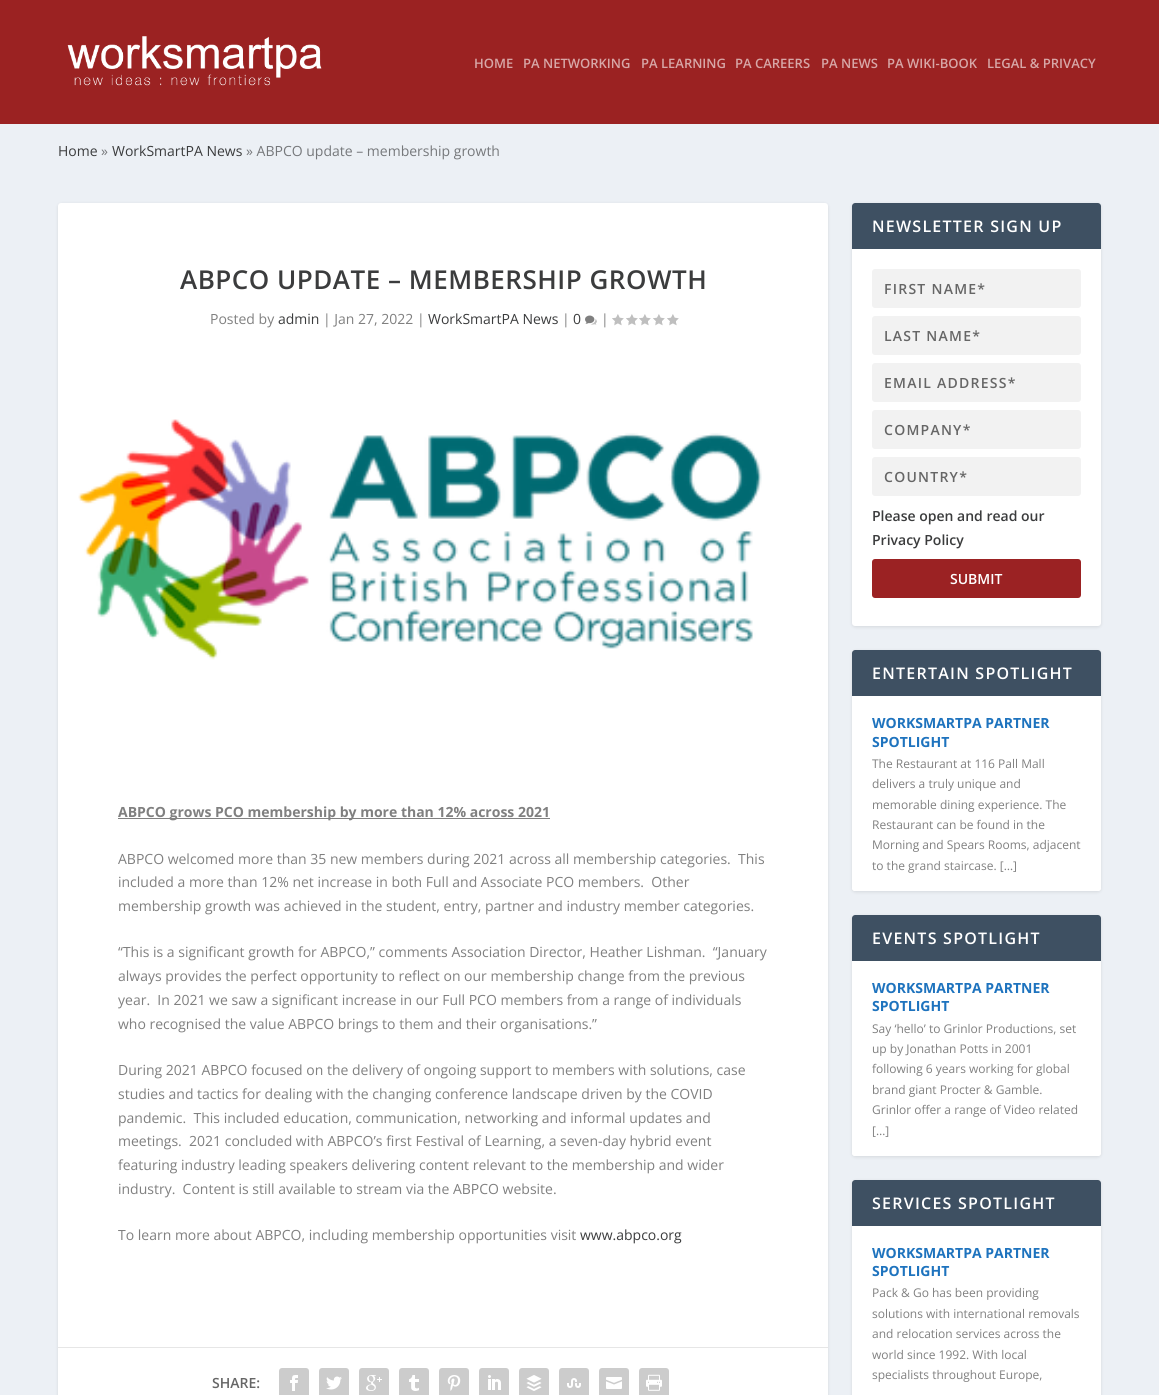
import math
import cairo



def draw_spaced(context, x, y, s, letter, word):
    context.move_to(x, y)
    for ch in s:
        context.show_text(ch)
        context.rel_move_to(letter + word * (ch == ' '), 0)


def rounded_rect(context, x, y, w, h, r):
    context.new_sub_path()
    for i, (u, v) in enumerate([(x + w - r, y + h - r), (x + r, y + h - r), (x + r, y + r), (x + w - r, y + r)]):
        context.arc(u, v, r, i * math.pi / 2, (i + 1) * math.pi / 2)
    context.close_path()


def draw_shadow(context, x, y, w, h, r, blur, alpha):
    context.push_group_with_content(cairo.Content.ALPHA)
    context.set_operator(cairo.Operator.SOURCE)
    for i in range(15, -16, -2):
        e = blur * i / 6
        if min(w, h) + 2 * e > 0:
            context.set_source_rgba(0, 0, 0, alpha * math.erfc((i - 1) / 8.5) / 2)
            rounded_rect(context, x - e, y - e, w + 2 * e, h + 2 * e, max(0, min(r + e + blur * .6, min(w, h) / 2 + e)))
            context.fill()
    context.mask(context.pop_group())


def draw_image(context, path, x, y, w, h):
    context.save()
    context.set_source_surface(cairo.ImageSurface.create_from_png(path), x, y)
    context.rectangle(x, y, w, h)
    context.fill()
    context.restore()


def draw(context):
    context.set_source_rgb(236 / 255, 240 / 255, 245 / 255)
    context.paint()
    context.set_source_rgb(155 / 255, 34 / 255, 34 / 255)
    context.rectangle(0, 0, 1159, 124)
    context.fill()
    draw_image(context, "images/1.png", 67, 36, 255, 50)
    context.set_source_rgb(0, 0, 0)
    draw_shadow(context, 58, 204, 770, 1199, 3, 1.5, 0.1)
    context.set_source_rgb(1, 1, 1)
    rounded_rect(context, 58, 203, 770, 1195, 3)
    context.fill()
    draw_image(context, "images/2.png", 585, 315, 12, 10)
    draw_image(context, "images/3.png", 612, 314, 12, 12)
    draw_image(context, "images/3.png", 626, 314, 12, 12)
    draw_image(context, "images/3.png", 639, 314, 12, 12)
    draw_image(context, "images/3.png", 653, 314, 12, 12)
    draw_image(context, "images/3.png", 667, 314, 12, 12)
    draw_image(context, "images/4.png", 78, 419, 684, 241)
    context.set_source_rgb(128 / 255, 128 / 255, 128 / 255)
    context.rectangle(118, 818, 432, 1)
    context.fill()
    context.set_source_rgb(230 / 255, 230 / 255, 230 / 255)
    context.rectangle(58, 1347, 770, 1)
    context.fill()
    context.set_source_rgb(204 / 255, 204 / 255, 204 / 255)
    rounded_rect(context, 279, 1368, 30, 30, 3)
    context.fill()
    draw_image(context, "images/5.png", 290, 1375, 8, 16)
    rounded_rect(context, 319, 1368, 30, 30, 3)
    context.fill()
    draw_image(context, "images/6.png", 326, 1376, 16, 14)
    rounded_rect(context, 359, 1368, 30, 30, 3)
    context.fill()
    draw_image(context, "images/7.png", 366, 1375, 16, 16)
    rounded_rect(context, 399, 1368, 30, 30, 3)
    context.fill()
    draw_image(context, "images/8.png", 409, 1375, 10, 16)
    rounded_rect(context, 439, 1368, 30, 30, 3)
    context.fill()
    draw_image(context, "images/9.png", 447, 1375, 14, 16)
    rounded_rect(context, 479, 1368, 30, 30, 3)
    context.fill()
    draw_image(context, "images/10.png", 488, 1375, 13, 15)
    rounded_rect(context, 519, 1368, 30, 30, 3)
    context.fill()
    draw_image(context, "images/11.png", 526, 1375, 16, 16)
    rounded_rect(context, 559, 1368, 30, 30, 3)
    context.fill()
    draw_image(context, "images/12.png", 567, 1378, 14, 10)
    rounded_rect(context, 599, 1368, 30, 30, 3)
    context.fill()
    draw_image(context, "images/13.png", 606, 1377, 16, 12)
    rounded_rect(context, 639, 1368, 30, 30, 3)
    context.fill()
    draw_image(context, "images/14.png", 646, 1374, 16, 17)
    context.set_source_rgb(0, 0, 0)
    draw_shadow(context, 852, 204, 249, 423, 3, 1.5, 0.1)
    context.set_source_rgb(1, 1, 1)
    rounded_rect(context, 852, 203, 249, 423, 3)
    context.fill()
    context.set_source_rgb(62 / 255, 80 / 255, 98 / 255)
    context.new_path()
    context.move_to(855, 203)
    context.line_to(1098, 203)
    context.curve_to(1099.5, 203, 1101, 204.5, 1101, 206)
    context.line_to(1101, 249)
    context.line_to(852, 249)
    context.line_to(852, 206)
    context.curve_to(852, 204.5, 853.5, 203, 855, 203)
    context.close_path()
    context.fill()
    context.set_source_rgb(242 / 255, 242 / 255, 242 / 255)
    rounded_rect(context, 872, 269, 209, 39, 3)
    context.fill()
    rounded_rect(context, 872, 316, 209, 39, 3)
    context.fill()
    rounded_rect(context, 872, 363, 209, 39, 3)
    context.fill()
    rounded_rect(context, 872, 410, 209, 39, 3)
    context.fill()
    rounded_rect(context, 872, 457, 209, 39, 3)
    context.fill()
    context.set_source_rgb(155 / 255, 34 / 255, 35 / 255)
    rounded_rect(context, 872, 559, 209, 39, 3)
    context.fill()
    context.set_source_rgb(0, 0, 0)
    draw_shadow(context, 852, 651, 249, 241, 3, 1.5, 0.1)
    context.set_source_rgb(1, 1, 1)
    rounded_rect(context, 852, 650, 249, 241, 3)
    context.fill()
    context.set_source_rgb(62 / 255, 80 / 255, 98 / 255)
    context.new_path()
    context.move_to(855, 650)
    context.line_to(1098, 650)
    context.curve_to(1099.5, 650, 1101, 651.5, 1101, 653)
    context.line_to(1101, 696)
    context.line_to(852, 696)
    context.line_to(852, 653)
    context.curve_to(852, 651.5, 853.5, 650, 855, 650)
    context.close_path()
    context.fill()
    context.set_source_rgb(1, 1, 1)
    rounded_rect(context, 852, 696, 249, 195, 3)
    context.fill()
    context.set_source_rgb(0, 0, 0)
    draw_shadow(context, 852, 916, 249, 241, 3, 1.5, 0.1)
    context.set_source_rgb(1, 1, 1)
    rounded_rect(context, 852, 915, 249, 241, 3)
    context.fill()
    context.set_source_rgb(62 / 255, 80 / 255, 98 / 255)
    context.new_path()
    context.move_to(855, 915)
    context.line_to(1098, 915)
    context.curve_to(1099.5, 915, 1101, 916.5, 1101, 918)
    context.line_to(1101, 961)
    context.line_to(852, 961)
    context.line_to(852, 918)
    context.curve_to(852, 916.5, 853.5, 915, 855, 915)
    context.close_path()
    context.fill()
    context.set_source_rgb(1, 1, 1)
    rounded_rect(context, 852, 961, 249, 195, 3)
    context.fill()
    context.set_source_rgb(0, 0, 0)
    draw_shadow(context, 852, 1181, 249, 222, 3, 1.5, 0.1)
    context.set_source_rgb(1, 1, 1)
    rounded_rect(context, 852, 1180, 249, 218, 3)
    context.fill()
    context.set_source_rgb(62 / 255, 80 / 255, 98 / 255)
    context.new_path()
    context.move_to(855, 1180)
    context.line_to(1098, 1180)
    context.curve_to(1099.5, 1180, 1101, 1181.5, 1101, 1183)
    context.line_to(1101, 1226)
    context.line_to(852, 1226)
    context.line_to(852, 1183)
    context.curve_to(852, 1181.5, 853.5, 1180, 855, 1180)
    context.close_path()
    context.fill()
    context.select_font_face("Open Sans SemiBold")
    context.set_font_size(13)
    context.set_source_rgb(215 / 255, 167 / 255, 167 / 255)
    context.move_to(474, 68)
    context.show_text("HOME")
    context.move_to(523, 68)
    context.show_text("PA NETWORKING")
    context.move_to(641, 68)
    context.show_text("PA LEARNING")
    context.move_to(735, 68)
    context.show_text("PA CAREERS")
    context.move_to(821, 68)
    context.show_text("PA NEWS")
    context.move_to(887, 68)
    context.show_text("PA WIKI-BOOK")
    context.move_to(987, 68)
    context.show_text("LEGAL & PRIVACY")
    context.select_font_face("Open Sans")
    context.set_font_size(14)
    context.set_source_rgb(59 / 255, 60 / 255, 61 / 255)
    context.move_to(58, 156)
    context.show_text("Home")
    context.set_source_rgb(118 / 255, 120 / 255, 123 / 255)
    context.move_to(101, 156)
    context.show_text("»")
    context.set_source_rgb(59 / 255, 60 / 255, 61 / 255)
    context.move_to(112, 156)
    context.show_text("WorkSmartPA News")
    context.set_source_rgb(118 / 255, 120 / 255, 123 / 255)
    context.move_to(246, 156)
    context.show_text("» ABPCO update – membership growth")
    context.select_font_face("Open Sans SemiBold")
    context.set_font_size(26)
    context.set_source_rgb(59 / 255, 60 / 255, 61 / 255)
    draw_spaced(context, 180, 289, "ABPCO UPDATE – MEMBERSHIP GROWTH", 0.5, 0)
    context.select_font_face("Open Sans")
    context.set_font_size(14)
    context.set_source_rgb(128 / 255, 128 / 255, 128 / 255)
    context.move_to(210, 324)
    context.show_text("Posted by")
    context.set_source_rgb(59 / 255, 60 / 255, 61 / 255)
    context.move_to(278, 324)
    context.show_text("admin")
    context.set_source_rgb(128 / 255, 128 / 255, 128 / 255)
    context.move_to(323, 324)
    context.show_text("| Jan 27, 2022 |")
    context.set_source_rgb(59 / 255, 60 / 255, 61 / 255)
    context.move_to(428, 324)
    context.show_text("WorkSmartPA News")
    context.set_source_rgb(128 / 255, 128 / 255, 128 / 255)
    context.move_to(562, 324)
    context.show_text("|")
    context.set_source_rgb(59 / 255, 60 / 255, 61 / 255)
    context.move_to(573, 324)
    context.show_text("0")
    context.set_source_rgb(128 / 255, 128 / 255, 128 / 255)
    context.move_to(601, 324)
    context.show_text("|")
    context.select_font_face("Open Sans", cairo.FontSlant.NORMAL, cairo.FontWeight.BOLD)
    context.move_to(118, 817)
    context.show_text("ABPCO grows PCO membership by more than 12% across 2021")
    context.select_font_face("Open Sans")
    context.move_to(118, 864)
    context.show_text("ABPCO welcomed more than 35 new members during 2021 across all membership categories.  This")
    context.move_to(118, 887)
    context.show_text("included a more than 12% net increase in both Full and Associate PCO members.  Other")
    context.move_to(118, 911)
    context.show_text("membership growth was achieved in the student, entry, partner and industry member categories.")
    context.move_to(118, 957)
    context.show_text("“This is a significant growth for ABPCO,” comments Association Director, Heather Lishman.  “January")
    context.move_to(118, 981)
    context.show_text("always provides the perfect opportunity to reflect on our membership change from the previous")
    context.move_to(118, 1005)
    context.show_text("year.  In 2021 we saw a significant increase in our Full PCO members from a range of individuals")
    context.move_to(118, 1029)
    context.show_text("who recognised the value ABPCO brings to them and their organisations.”")
    context.move_to(118, 1075)
    context.show_text("During 2021 ABPCO focused on the delivery of ongoing support to members with solutions, case")
    context.move_to(118, 1099)
    context.show_text("studies and tactics for dealing with the changing conference landscape driven by the COVID")
    context.move_to(118, 1123)
    context.show_text("pandemic.  This included education, communication, networking and informal updates and")
    context.move_to(118, 1146)
    context.show_text("meetings.  2021 concluded with ABPCO’s first Festival of Learning, a seven-day hybrid event")
    context.move_to(118, 1170)
    context.show_text("featuring industry leading speakers delivering content relevant to the membership and wider")
    context.move_to(118, 1194)
    context.show_text("industry.  Content is still available to stream via the ABPCO website.")
    context.move_to(118, 1240)
    context.show_text("To learn more about ABPCO, including membership opportunities visit")
    context.set_source_rgb(59 / 255, 60 / 255, 61 / 255)
    context.move_to(580, 1240)
    context.show_text("www.abpco.org")
    context.select_font_face("Open Sans SemiBold")
    context.set_source_rgb(102 / 255, 102 / 255, 102 / 255)
    context.move_to(212, 1388)
    context.show_text("SHARE:")
    context.set_font_size(16)
    context.set_source_rgb(1, 1, 1)
    draw_spaced(context, 872, 232, "NEWSLETTER SIGN UP", 1.25, 0)
    context.set_font_size(14)
    context.set_source_rgb(102 / 255, 102 / 255, 102 / 255)
    draw_spaced(context, 884, 294, "FIRST NAME*", 1.25, 0)
    draw_spaced(context, 884, 341, "LAST NAME*", 1.25, 0)
    draw_spaced(context, 884, 388, "EMAIL ADDRESS*", 1.25, 0)
    draw_spaced(context, 884, 435, "COMPANY*", 1.25, 0)
    draw_spaced(context, 884, 482, "COUNTRY*", 1.25, 0)
    context.set_source_rgb(59 / 255, 60 / 255, 61 / 255)
    context.move_to(872, 521)
    context.show_text("Please open and read our")
    context.move_to(872, 545)
    context.show_text("Privacy Policy")
    context.set_source_rgb(1, 1, 1)
    context.move_to(950, 584)
    context.show_text("SUBMIT")
    context.set_font_size(16)
    draw_spaced(context, 872, 679, "ENTERTAIN SPOTLIGHT", 1.25, 0)
    context.select_font_face("Open Sans", cairo.FontSlant.NORMAL, cairo.FontWeight.BOLD)
    context.set_font_size(14)
    context.set_source_rgb(30 / 255, 115 / 255, 190 / 255)
    context.move_to(872, 728)
    context.show_text("WORKSMARTPA PARTNER")
    context.move_to(872, 747)
    context.show_text("SPOTLIGHT")
    context.select_font_face("Open Sans")
    context.set_font_size(12)
    context.set_source_rgb(128 / 255, 128 / 255, 128 / 255)
    context.move_to(872, 768)
    context.show_text("The Restaurant at 116 Pall Mall")
    context.move_to(872, 788)
    context.show_text("delivers a truly unique and")
    context.move_to(872, 809)
    context.show_text("memorable dining experience. The")
    context.move_to(872, 829)
    context.show_text("Restaurant can be found in the")
    context.move_to(872, 849)
    context.show_text("Morning and Spears Rooms, adjacent")
    context.move_to(872, 870)
    context.show_text("to the grand staircase. […]")
    context.select_font_face("Open Sans SemiBold")
    context.set_font_size(16)
    context.set_source_rgb(1, 1, 1)
    draw_spaced(context, 872, 944, "EVENTS SPOTLIGHT", 1.25, 0)
    context.select_font_face("Open Sans", cairo.FontSlant.NORMAL, cairo.FontWeight.BOLD)
    context.set_font_size(14)
    context.set_source_rgb(30 / 255, 115 / 255, 190 / 255)
    context.move_to(872, 993)
    context.show_text("WORKSMARTPA PARTNER")
    context.move_to(872, 1011)
    context.show_text("SPOTLIGHT")
    context.select_font_face("Open Sans")
    context.set_font_size(12)
    context.set_source_rgb(128 / 255, 128 / 255, 128 / 255)
    context.move_to(872, 1033)
    context.show_text("Say ‘hello’ to Grinlor Productions, set")
    context.move_to(872, 1053)
    context.show_text("up by Jonathan Potts in 2001")
    context.move_to(872, 1073)
    context.show_text("following 6 years working for global")
    context.move_to(872, 1094)
    context.show_text("brand giant Procter & Gamble.")
    context.move_to(872, 1114)
    context.show_text("Grinlor offer a range of Video related")
    context.move_to(872, 1135)
    context.show_text("[…]")
    context.select_font_face("Open Sans SemiBold")
    context.set_font_size(16)
    context.set_source_rgb(1, 1, 1)
    draw_spaced(context, 872, 1209, "SERVICES SPOTLIGHT", 1.25, 0)
    context.select_font_face("Open Sans", cairo.FontSlant.NORMAL, cairo.FontWeight.BOLD)
    context.set_font_size(14)
    context.set_source_rgb(30 / 255, 115 / 255, 190 / 255)
    context.move_to(872, 1258)
    context.show_text("WORKSMARTPA PARTNER")
    context.move_to(872, 1276)
    context.show_text("SPOTLIGHT")
    context.select_font_face("Open Sans")
    context.set_font_size(12)
    context.set_source_rgb(128 / 255, 128 / 255, 128 / 255)
    context.move_to(872, 1297)
    context.show_text("Pack & Go has been providing")
    context.move_to(872, 1318)
    context.show_text("solutions with international removals")
    context.move_to(872, 1338)
    context.show_text("and relocation services across the")
    context.move_to(872, 1359)
    context.show_text("world since 1992. With local")
    context.move_to(872, 1379)
    context.show_text("specialists throughout Europe,")


surface = cairo.ImageSurface(cairo.Format.RGB24, 1159, 1395)
context = cairo.Context(surface)
options = cairo.FontOptions()
options.set_hint_metrics(cairo.HintMetrics.OFF)
options.set_hint_style(cairo.HintStyle.NONE)
context.set_font_options(options)
context.set_miter_limit(4)
draw(context)
surface.write_to_png("out.png")
